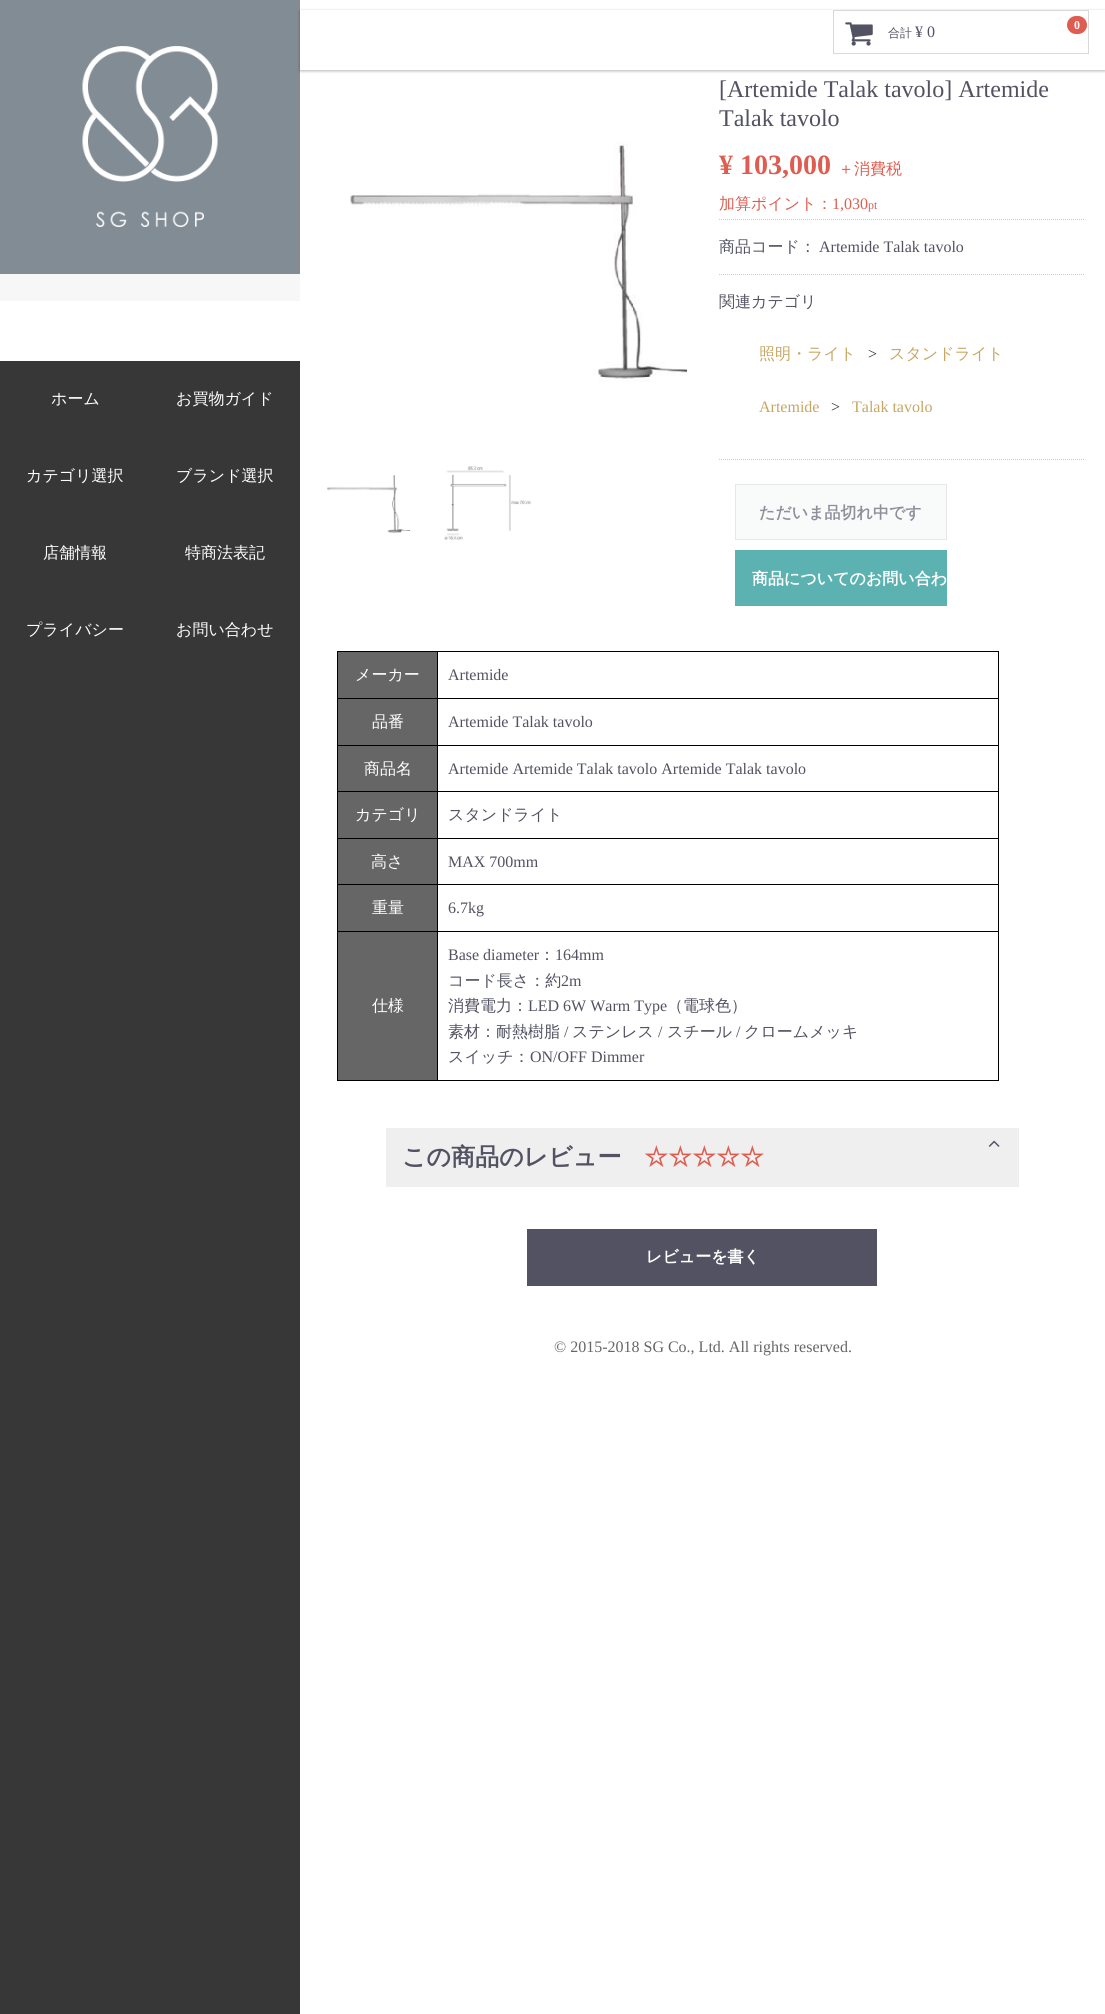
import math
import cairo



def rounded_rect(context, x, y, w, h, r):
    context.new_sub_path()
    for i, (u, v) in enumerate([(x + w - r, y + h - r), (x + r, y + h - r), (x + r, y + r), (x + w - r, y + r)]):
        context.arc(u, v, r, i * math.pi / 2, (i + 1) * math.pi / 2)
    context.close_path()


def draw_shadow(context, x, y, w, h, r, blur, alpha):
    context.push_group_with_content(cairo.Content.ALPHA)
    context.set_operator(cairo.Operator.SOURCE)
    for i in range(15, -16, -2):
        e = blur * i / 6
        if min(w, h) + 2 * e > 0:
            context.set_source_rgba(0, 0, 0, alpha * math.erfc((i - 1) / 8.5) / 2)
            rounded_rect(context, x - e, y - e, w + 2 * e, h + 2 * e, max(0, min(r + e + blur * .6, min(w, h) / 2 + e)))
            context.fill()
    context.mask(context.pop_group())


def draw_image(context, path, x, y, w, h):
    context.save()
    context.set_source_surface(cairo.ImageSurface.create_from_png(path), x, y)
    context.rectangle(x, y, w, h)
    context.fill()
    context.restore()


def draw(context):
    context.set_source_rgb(1, 1, 1)
    context.paint()
    context.set_source_rgb(55 / 255, 55 / 255, 55 / 255)
    context.rectangle(0, 361, 300, 1653)
    context.fill()
    context.set_source_rgb(130 / 255, 140 / 255, 149 / 255)
    context.rectangle(0, 0, 300, 274)
    context.fill()
    draw_image(context, "images/1.png", 82, 46, 136, 181)
    context.set_source_rgb(247 / 255, 247 / 255, 247 / 255)
    context.rectangle(0, 274, 300, 27)
    context.fill()
    context.save()
    context.set_fill_rule(cairo.FillRule.EVEN_ODD)
    context.new_path()
    context.move_to(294, 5)
    context.line_to(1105, 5)
    context.line_to(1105, 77)
    context.line_to(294, 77)
    context.close_path()
    context.move_to(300, 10)
    context.line_to(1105, 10)
    context.line_to(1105, 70)
    context.line_to(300, 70)
    context.close_path()
    context.clip()
    context.set_source_rgb(0, 0, 0)
    draw_shadow(context, 300, 11, 805, 60, 0, 1.5, 0.3)
    context.restore()
    context.rectangle(833.5, 10.5, 255, 43)
    context.set_source_rgb(217 / 255, 217 / 255, 217 / 255)
    context.set_line_width(1)
    context.stroke()
    draw_image(context, "images/2.png", 845, 22, 28, 24)
    context.set_source_rgb(222 / 255, 93 / 255, 80 / 255)
    rounded_rect(context, 1067, 16, 20, 18, 9)
    context.fill()
    draw_image(context, "images/3.png", 350, 141, 337, 241)
    draw_image(context, "images/4.png", 327, 475, 83, 58)
    draw_image(context, "images/5.png", 444, 466, 88, 74)
    context.new_path()
    context.move_to(719, 219.5)
    context.line_to(1085, 219.5)
    context.set_source_rgb(204 / 255, 204 / 255, 204 / 255)
    context.set_dash([1, 1])
    context.stroke()
    context.new_path()
    context.move_to(719, 274.5)
    context.line_to(1085, 274.5)
    context.stroke()
    context.new_path()
    context.move_to(719, 459.5)
    context.line_to(1085, 459.5)
    context.stroke()
    context.set_source_rgb(249 / 255, 250 / 255, 250 / 255)
    context.rectangle(735.5, 484.5, 211, 55)
    context.fill_preserve()
    context.set_source_rgb(229 / 255, 231 / 255, 233 / 255)
    context.set_dash([])
    context.stroke()
    context.set_source_rgb(92 / 255, 177 / 255, 177 / 255)
    context.rectangle(735, 550, 212, 56)
    context.fill()
    context.set_source_rgb(102 / 255, 102 / 255, 102 / 255)
    context.rectangle(338, 652, 99, 46)
    context.fill()
    context.set_source_rgb(0, 0, 0)
    context.rectangle(437, 651, 562, 1)
    context.fill()
    context.rectangle(437, 698, 562, 1)
    context.fill()
    context.rectangle(437, 745, 562, 1)
    context.fill()
    context.rectangle(437, 791, 562, 1)
    context.fill()
    context.rectangle(437, 838, 562, 1)
    context.fill()
    context.rectangle(437, 884, 562, 1)
    context.fill()
    context.rectangle(437, 931, 562, 1)
    context.fill()
    context.rectangle(998, 931, 1, 150)
    context.fill()
    context.rectangle(437, 1080, 562, 1)
    context.fill()
    context.rectangle(437, 931, 1, 150)
    context.fill()
    context.rectangle(337, 931, 101, 1)
    context.fill()
    context.rectangle(437, 884, 1, 48)
    context.fill()
    context.rectangle(337, 884, 101, 1)
    context.fill()
    context.rectangle(437, 838, 1, 47)
    context.fill()
    context.rectangle(337, 838, 101, 1)
    context.fill()
    context.rectangle(437, 791, 1, 48)
    context.fill()
    context.rectangle(337, 791, 101, 1)
    context.fill()
    context.rectangle(437, 745, 1, 47)
    context.fill()
    context.rectangle(337, 745, 101, 1)
    context.fill()
    context.rectangle(437, 698, 1, 48)
    context.fill()
    context.rectangle(337, 698, 101, 1)
    context.fill()
    context.rectangle(437, 651, 1, 48)
    context.fill()
    context.rectangle(337, 651, 101, 1)
    context.fill()
    context.rectangle(337, 1080, 101, 1)
    context.fill()
    context.rectangle(337, 931, 1, 150)
    context.fill()
    context.rectangle(337, 884, 1, 48)
    context.fill()
    context.rectangle(337, 838, 1, 47)
    context.fill()
    context.rectangle(337, 791, 1, 48)
    context.fill()
    context.rectangle(337, 745, 1, 47)
    context.fill()
    context.rectangle(337, 698, 1, 48)
    context.fill()
    context.rectangle(337, 651, 1, 48)
    context.fill()
    context.rectangle(998, 884, 1, 48)
    context.fill()
    context.rectangle(998, 838, 1, 47)
    context.fill()
    context.rectangle(998, 791, 1, 48)
    context.fill()
    context.rectangle(998, 745, 1, 47)
    context.fill()
    context.rectangle(998, 698, 1, 48)
    context.fill()
    context.rectangle(998, 651, 1, 48)
    context.fill()
    context.set_source_rgb(102 / 255, 102 / 255, 102 / 255)
    context.rectangle(338, 699, 99, 46)
    context.fill()
    context.rectangle(338, 746, 99, 45)
    context.fill()
    context.rectangle(338, 792, 99, 46)
    context.fill()
    context.rectangle(338, 839, 99, 45)
    context.fill()
    context.rectangle(338, 885, 99, 46)
    context.fill()
    context.rectangle(338, 932, 99, 148)
    context.fill()
    context.set_source_rgb(239 / 255, 239 / 255, 239 / 255)
    context.rectangle(386, 1128, 633, 59)
    context.fill()
    draw_image(context, "images/6.png", 988, 1140, 12, 7)
    context.set_source_rgb(82 / 255, 82 / 255, 99 / 255)
    context.rectangle(527, 1229, 350, 57)
    context.fill()
    context.select_font_face("WenQuanYi Zen Hei Medium")
    context.set_font_size(16)
    context.set_source_rgb(1, 1, 1)
    context.move_to(51, 404)
    context.show_text("ホーム")
    context.move_to(176, 404)
    context.show_text("お買物ガイド")
    context.move_to(26, 481)
    context.show_text("カテゴリ選択")
    context.move_to(176, 481)
    context.show_text("ブランド選択")
    context.move_to(43, 558)
    context.show_text("店舗情報")
    context.move_to(185, 558)
    context.show_text("特商法表記")
    context.move_to(26, 635)
    context.show_text("プライバシー")
    context.move_to(176, 635)
    context.show_text("お問い合わせ")
    context.set_font_size(12)
    context.set_source_rgb(82 / 255, 82 / 255, 99 / 255)
    context.move_to(888, 37)
    context.show_text("合計")
    context.select_font_face("Liberation Serif")
    context.set_font_size(16)
    context.move_to(915, 37)
    context.show_text("¥ 0")
    context.select_font_face("Liberation Serif", cairo.FontSlant.NORMAL, cairo.FontWeight.BOLD)
    context.set_font_size(12)
    context.set_source_rgb(1, 1, 1)
    context.move_to(1074, 29)
    context.show_text("0")
    context.select_font_face("Liberation Serif")
    context.set_font_size(24)
    context.set_source_rgb(82 / 255, 82 / 255, 99 / 255)
    context.move_to(719, 97)
    context.show_text("[Artemide Talak tavolo] Artemide")
    context.move_to(719, 126)
    context.show_text("Talak tavolo")
    context.select_font_face("Liberation Serif", cairo.FontSlant.NORMAL, cairo.FontWeight.BOLD)
    context.set_font_size(28)
    context.set_source_rgb(222 / 255, 93 / 255, 80 / 255)
    context.move_to(719, 174)
    context.show_text("¥ 103,000")
    context.select_font_face("WenQuanYi Zen Hei Medium")
    context.set_font_size(16)
    context.move_to(838, 174)
    context.show_text("＋消費税")
    context.move_to(719, 209)
    context.show_text("加算ポイント：")
    context.select_font_face("Liberation Serif")
    context.move_to(832, 209)
    context.show_text("1,030")
    context.set_font_size(12)
    context.move_to(868, 209)
    context.show_text("pt")
    context.select_font_face("WenQuanYi Zen Hei Medium")
    context.set_font_size(16)
    context.set_source_rgb(82 / 255, 82 / 255, 99 / 255)
    context.move_to(719, 252)
    context.show_text("商品コード：")
    context.select_font_face("Liberation Serif")
    context.move_to(819, 252)
    context.show_text("Artemide Talak tavolo")
    context.select_font_face("WenQuanYi Zen Hei Medium")
    context.move_to(719, 307)
    context.show_text("関連カテゴリ")
    context.set_source_rgb(198 / 255, 166 / 255, 99 / 255)
    context.move_to(759, 359)
    context.show_text("照明・ライト")
    context.select_font_face("Liberation Serif")
    context.set_source_rgb(51 / 255, 51 / 255, 51 / 255)
    context.move_to(868, 359)
    context.show_text(">")
    context.select_font_face("WenQuanYi Zen Hei Medium")
    context.set_source_rgb(198 / 255, 166 / 255, 99 / 255)
    context.move_to(889, 359)
    context.show_text("スタンドライト")
    context.select_font_face("Liberation Serif")
    context.move_to(759, 412)
    context.show_text("Artemide")
    context.set_source_rgb(51 / 255, 51 / 255, 51 / 255)
    context.move_to(831, 412)
    context.show_text(">")
    context.set_source_rgb(198 / 255, 166 / 255, 99 / 255)
    context.move_to(852, 412)
    context.show_text("Talak tavolo")
    context.select_font_face("WenQuanYi Zen Hei", cairo.FontSlant.NORMAL, cairo.FontWeight.BOLD)
    context.set_source_rgb(143 / 255, 143 / 255, 154 / 255)
    context.move_to(759, 518)
    context.show_text("ただいま品切れ中です")
    context.set_source_rgb(1, 1, 1)
    context.move_to(752, 584)
    context.show_text("商品についてのお問い合わ")
    context.select_font_face("WenQuanYi Zen Hei Medium")
    context.move_to(355, 680)
    context.show_text("メーカー")
    context.select_font_face("Liberation Serif")
    context.set_source_rgb(82 / 255, 82 / 255, 99 / 255)
    context.move_to(448, 680)
    context.show_text("Artemide")
    context.select_font_face("WenQuanYi Zen Hei Medium")
    context.set_source_rgb(1, 1, 1)
    context.move_to(372, 727)
    context.show_text("品番")
    context.select_font_face("Liberation Serif")
    context.set_source_rgb(82 / 255, 82 / 255, 99 / 255)
    context.move_to(448, 727)
    context.show_text("Artemide Talak tavolo")
    context.select_font_face("WenQuanYi Zen Hei Medium")
    context.set_source_rgb(1, 1, 1)
    context.move_to(364, 774)
    context.show_text("商品名")
    context.select_font_face("Liberation Serif")
    context.set_source_rgb(82 / 255, 82 / 255, 99 / 255)
    context.move_to(448, 774)
    context.show_text("Artemide Artemide Talak tavolo Artemide Talak tavolo")
    context.select_font_face("WenQuanYi Zen Hei Medium")
    context.set_source_rgb(1, 1, 1)
    context.move_to(355, 820)
    context.show_text("カテゴリ")
    context.set_source_rgb(82 / 255, 82 / 255, 99 / 255)
    context.move_to(448, 820)
    context.show_text("スタンドライト")
    context.set_source_rgb(1, 1, 1)
    context.move_to(371, 867)
    context.show_text("高さ")
    context.select_font_face("Liberation Serif")
    context.set_source_rgb(82 / 255, 82 / 255, 99 / 255)
    context.move_to(448, 867)
    context.show_text("MAX 700mm")
    context.select_font_face("WenQuanYi Zen Hei Medium")
    context.set_source_rgb(1, 1, 1)
    context.move_to(372, 913)
    context.show_text("重量")
    context.select_font_face("Liberation Serif")
    context.set_source_rgb(82 / 255, 82 / 255, 99 / 255)
    context.move_to(448, 913)
    context.show_text("6.7kg")
    context.select_font_face("WenQuanYi Zen Hei Medium")
    context.set_source_rgb(1, 1, 1)
    context.move_to(372, 1011)
    context.show_text("仕様")
    context.select_font_face("Liberation Serif")
    context.set_source_rgb(82 / 255, 82 / 255, 99 / 255)
    context.move_to(448, 960)
    context.show_text("Base diameter")
    context.select_font_face("WenQuanYi Zen Hei Medium")
    context.move_to(539, 960)
    context.show_text("：")
    context.select_font_face("Liberation Serif")
    context.move_to(555, 960)
    context.show_text("164mm")
    context.select_font_face("WenQuanYi Zen Hei Medium")
    context.move_to(448, 986)
    context.show_text("コード長さ：約")
    context.select_font_face("Liberation Serif")
    context.move_to(561, 986)
    context.show_text("2m")
    context.select_font_face("WenQuanYi Zen Hei Medium")
    context.move_to(448, 1011)
    context.show_text("消費電力：")
    context.select_font_face("Liberation Serif")
    context.move_to(528, 1011)
    context.show_text("LED 6W Warm Type")
    context.select_font_face("WenQuanYi Zen Hei Medium")
    context.move_to(667, 1011)
    context.show_text("（電球色）")
    context.move_to(448, 1037)
    context.show_text("素材：耐熱樹脂")
    context.select_font_face("Liberation Serif")
    context.move_to(564, 1037)
    context.show_text("/")
    context.select_font_face("WenQuanYi Zen Hei Medium")
    context.move_to(572, 1037)
    context.show_text("ステンレス")
    context.select_font_face("Liberation Serif")
    context.move_to(658, 1037)
    context.show_text("/")
    context.select_font_face("WenQuanYi Zen Hei Medium")
    context.move_to(667, 1037)
    context.show_text("スチール")
    context.select_font_face("Liberation Serif")
    context.move_to(736, 1037)
    context.show_text("/")
    context.select_font_face("WenQuanYi Zen Hei Medium")
    context.move_to(744, 1037)
    context.show_text("クロームメッキ")
    context.move_to(448, 1062)
    context.show_text("スイッチ：")
    context.select_font_face("Liberation Serif")
    context.move_to(530, 1062)
    context.show_text("ON/OFF Dimmer")
    context.select_font_face("WenQuanYi Zen Hei", cairo.FontSlant.NORMAL, cairo.FontWeight.BOLD)
    context.set_font_size(24)
    context.move_to(402, 1165)
    context.show_text("この商品のレビュー")
    context.set_source_rgb(222 / 255, 93 / 255, 80 / 255)
    context.move_to(644, 1165)
    context.show_text("☆☆☆☆☆")
    context.set_font_size(16)
    context.set_source_rgb(1, 1, 1)
    context.move_to(646, 1262)
    context.show_text("レビューを書く")
    context.select_font_face("Liberation Serif")
    context.set_source_rgb(102 / 255, 102 / 255, 102 / 255)
    context.move_to(554, 1352)
    context.show_text("© 2015-2018 SG Co., Ltd. All rights reserved.")


surface = cairo.ImageSurface(cairo.Format.RGB24, 1105, 2014)
context = cairo.Context(surface)
options = cairo.FontOptions()
options.set_hint_metrics(cairo.HintMetrics.OFF)
options.set_hint_style(cairo.HintStyle.NONE)
context.set_font_options(options)
context.set_miter_limit(4)
draw(context)
surface.write_to_png("out.png")
